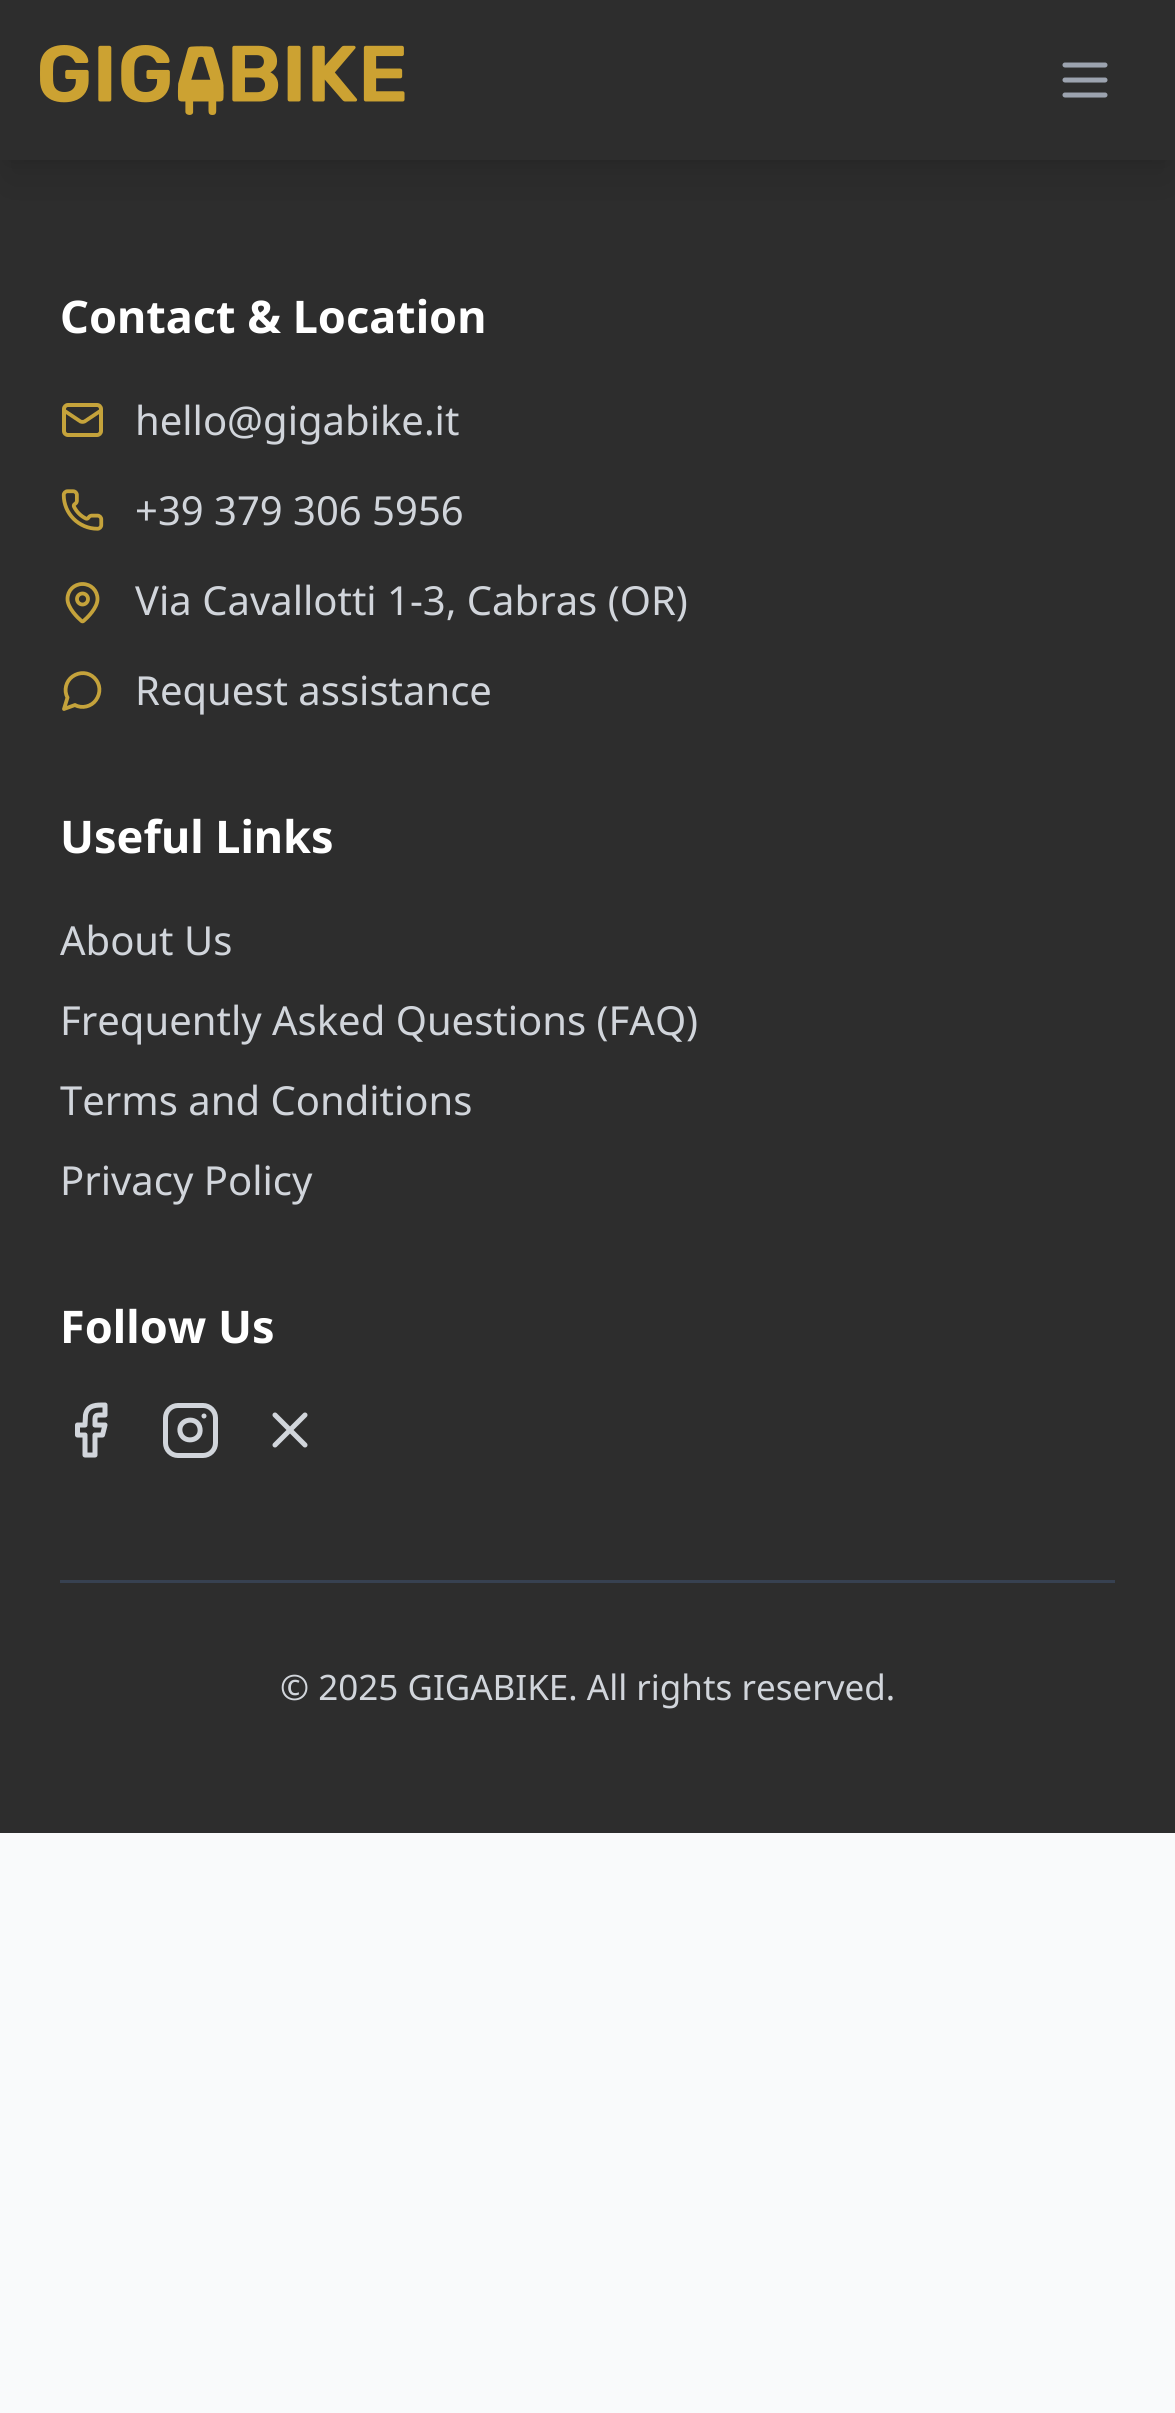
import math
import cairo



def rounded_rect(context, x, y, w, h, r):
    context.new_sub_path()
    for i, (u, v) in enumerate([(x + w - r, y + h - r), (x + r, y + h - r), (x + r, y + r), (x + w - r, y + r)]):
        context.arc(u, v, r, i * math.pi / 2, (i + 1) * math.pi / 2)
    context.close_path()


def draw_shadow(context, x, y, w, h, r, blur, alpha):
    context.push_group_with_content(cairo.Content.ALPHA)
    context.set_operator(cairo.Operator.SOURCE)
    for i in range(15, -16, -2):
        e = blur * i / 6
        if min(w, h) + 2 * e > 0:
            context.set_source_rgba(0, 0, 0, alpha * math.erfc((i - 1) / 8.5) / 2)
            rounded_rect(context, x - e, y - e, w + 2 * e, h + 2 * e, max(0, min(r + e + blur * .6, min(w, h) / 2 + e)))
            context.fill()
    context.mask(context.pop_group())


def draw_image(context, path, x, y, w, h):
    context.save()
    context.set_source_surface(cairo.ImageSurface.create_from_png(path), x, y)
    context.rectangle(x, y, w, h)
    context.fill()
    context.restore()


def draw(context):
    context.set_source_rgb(249 / 255, 250 / 255, 251 / 255)
    context.paint()
    context.set_source_rgb(45 / 255, 45 / 255, 45 / 255)
    context.rectangle(0, 160, 1175, 1673)
    context.fill()
    context.set_source_rgb(0, 0, 0)
    draw_shadow(context, 10, 20, 1155, 140, 0, 7.5, 0.1)
    draw_shadow(context, 8, 33, 1160, 145, 0, 19, 0.1)
    context.set_source_rgb(45 / 255, 45 / 255, 45 / 255)
    context.rectangle(0, 0, 1175, 160)
    context.fill()
    draw_image(context, "images/1.png", 40, 45, 365, 70)
    context.new_path()
    context.move_to(1065, 80)
    context.line_to(1105, 80)
    context.move_to(1065, 95)
    context.line_to(1105, 95)
    context.move_to(1065, 65)
    context.line_to(1105, 65)
    context.set_source_rgb(156 / 255, 163 / 255, 175 / 255)
    context.set_line_width(5)
    context.set_line_cap(cairo.LineCap.ROUND)
    context.set_line_join(cairo.LineJoin.ROUND)
    context.stroke()
    context.new_path()
    context.move_to(101, 410.5)
    context.line_to(84.5, 421.5)
    context.curve_to(83, 422, 82, 422, 80.5, 421.5)
    context.line_to(64, 410.5)
    context.set_source_rgb(197 / 255, 163 / 255, 59 / 255)
    context.set_line_width(3.8)
    context.stroke()
    rounded_rect(context, 64, 405, 37, 30, 4)
    context.set_line_width(4)
    context.set_line_cap(cairo.LineCap.BUTT)
    context.set_line_join(cairo.LineJoin.MITER)
    context.stroke()
    draw_image(context, "images/2.png", 61, 489, 43, 42)
    context.new_path()
    context.move_to(97.5, 599)
    context.curve_to(97.5, 608, 87, 618, 83.5, 621)
    context.curve_to(83, 621.5, 82, 621.5, 81.5, 621)
    context.curve_to(78, 618, 67.5, 608, 67.5, 599)
    context.curve_to(67.5, 590.5, 74, 584, 82.5, 584)
    context.curve_to(91, 584, 97.5, 590.5, 97.5, 599)
    context.set_line_width(3.8)
    context.set_line_cap(cairo.LineCap.ROUND)
    context.set_line_join(cairo.LineJoin.ROUND)
    context.stroke()
    context.arc(82.5, 599, 5.5, 0, 2 * math.pi)
    context.set_line_cap(cairo.LineCap.BUTT)
    context.set_line_join(cairo.LineJoin.MITER)
    context.stroke()
    context.new_path()
    context.move_to(75, 705)
    context.curve_to(82, 709, 91.5, 706.5, 96, 700)
    context.curve_to(101, 693, 100.5, 684, 94.5, 678)
    context.curve_to(88.5, 672, 79.5, 671.5, 72.5, 676.5)
    context.curve_to(66, 681, 63.5, 690.5, 67.5, 697.5)
    context.line_to(64, 709)
    context.close_path()
    context.set_line_cap(cairo.LineCap.ROUND)
    context.set_line_join(cairo.LineJoin.ROUND)
    context.stroke()
    context.new_path()
    context.move_to(105, 1405)
    context.curve_to(97, 1405, 87.5, 1404.5, 85.5, 1415)
    context.line_to(85, 1425)
    context.line_to(77.5, 1425)
    context.line_to(77.5, 1435)
    context.line_to(85, 1435)
    context.line_to(85, 1455)
    context.line_to(95, 1455)
    context.line_to(95, 1435)
    context.line_to(102.5, 1435)
    context.line_to(105, 1425)
    context.line_to(95, 1425)
    context.curve_to(95, 1414, 94, 1415, 105, 1415)
    context.close_path()
    context.set_source_rgb(209 / 255, 213 / 255, 219 / 255)
    context.set_line_width(5)
    context.stroke()
    rounded_rect(context, 165.5, 1405.5, 50, 50, 12.5)
    context.set_line_cap(cairo.LineCap.BUTT)
    context.set_line_join(cairo.LineJoin.MITER)
    context.stroke()
    context.new_path()
    context.move_to(200, 1428.5)
    context.curve_to(202, 1441.5, 182.5, 1444.5, 180, 1431.5)
    context.curve_to(178, 1418.5, 198, 1415.5, 200, 1428.5)
    context.close_path()
    context.move_to(204, 1416)
    context.line_to(204, 1416)
    context.set_line_cap(cairo.LineCap.ROUND)
    context.set_line_join(cairo.LineJoin.ROUND)
    context.stroke()
    context.new_path()
    context.move_to(305, 1415)
    context.line_to(275, 1445)
    context.move_to(275, 1415)
    context.line_to(305, 1445)
    context.stroke()
    context.set_source_rgb(55 / 255, 65 / 255, 81 / 255)
    context.rectangle(60, 1580, 1055, 3)
    context.fill()
    context.select_font_face("Noto Sans", cairo.FontSlant.NORMAL, cairo.FontWeight.BOLD)
    context.set_font_size(45)
    context.set_source_rgb(1, 1, 1)
    context.move_to(60, 333)
    context.show_text("Contact & Location")
    context.select_font_face("Noto Sans")
    context.set_font_size(40)
    context.set_source_rgb(209 / 255, 213 / 255, 219 / 255)
    context.move_to(135, 435)
    context.show_text("hello@gigabike.it")
    context.move_to(135, 525)
    context.show_text("+39 379 306 5956")
    context.move_to(135, 615)
    context.show_text("Via Cavallotti 1-3, Cabras (OR)")
    context.move_to(135, 705)
    context.show_text("Request assistance")
    context.select_font_face("Noto Sans", cairo.FontSlant.NORMAL, cairo.FontWeight.BOLD)
    context.set_font_size(45)
    context.set_source_rgb(1, 1, 1)
    context.move_to(60, 853)
    context.show_text("Useful Links")
    context.select_font_face("Noto Sans")
    context.set_font_size(40)
    context.set_source_rgb(209 / 255, 213 / 255, 219 / 255)
    context.move_to(60, 955)
    context.show_text("About Us")
    context.move_to(60, 1035)
    context.show_text("Frequently Asked Questions (FAQ)")
    context.move_to(60, 1115)
    context.show_text("Terms and Conditions")
    context.move_to(60, 1195)
    context.show_text("Privacy Policy")
    context.select_font_face("Noto Sans", cairo.FontSlant.NORMAL, cairo.FontWeight.BOLD)
    context.set_font_size(45)
    context.set_source_rgb(1, 1, 1)
    context.move_to(60, 1343)
    context.show_text("Follow Us")
    context.select_font_face("Noto Sans")
    context.set_font_size(35)
    context.set_source_rgb(209 / 255, 213 / 255, 219 / 255)
    context.move_to(280, 1700)
    context.show_text("© 2025 GIGABIKE. All rights reserved.")


surface = cairo.ImageSurface(cairo.Format.RGB24, 1175, 2413)
context = cairo.Context(surface)
options = cairo.FontOptions()
options.set_hint_metrics(cairo.HintMetrics.OFF)
options.set_hint_style(cairo.HintStyle.NONE)
context.set_font_options(options)
context.set_miter_limit(4)
draw(context)
surface.write_to_png("out.png")
